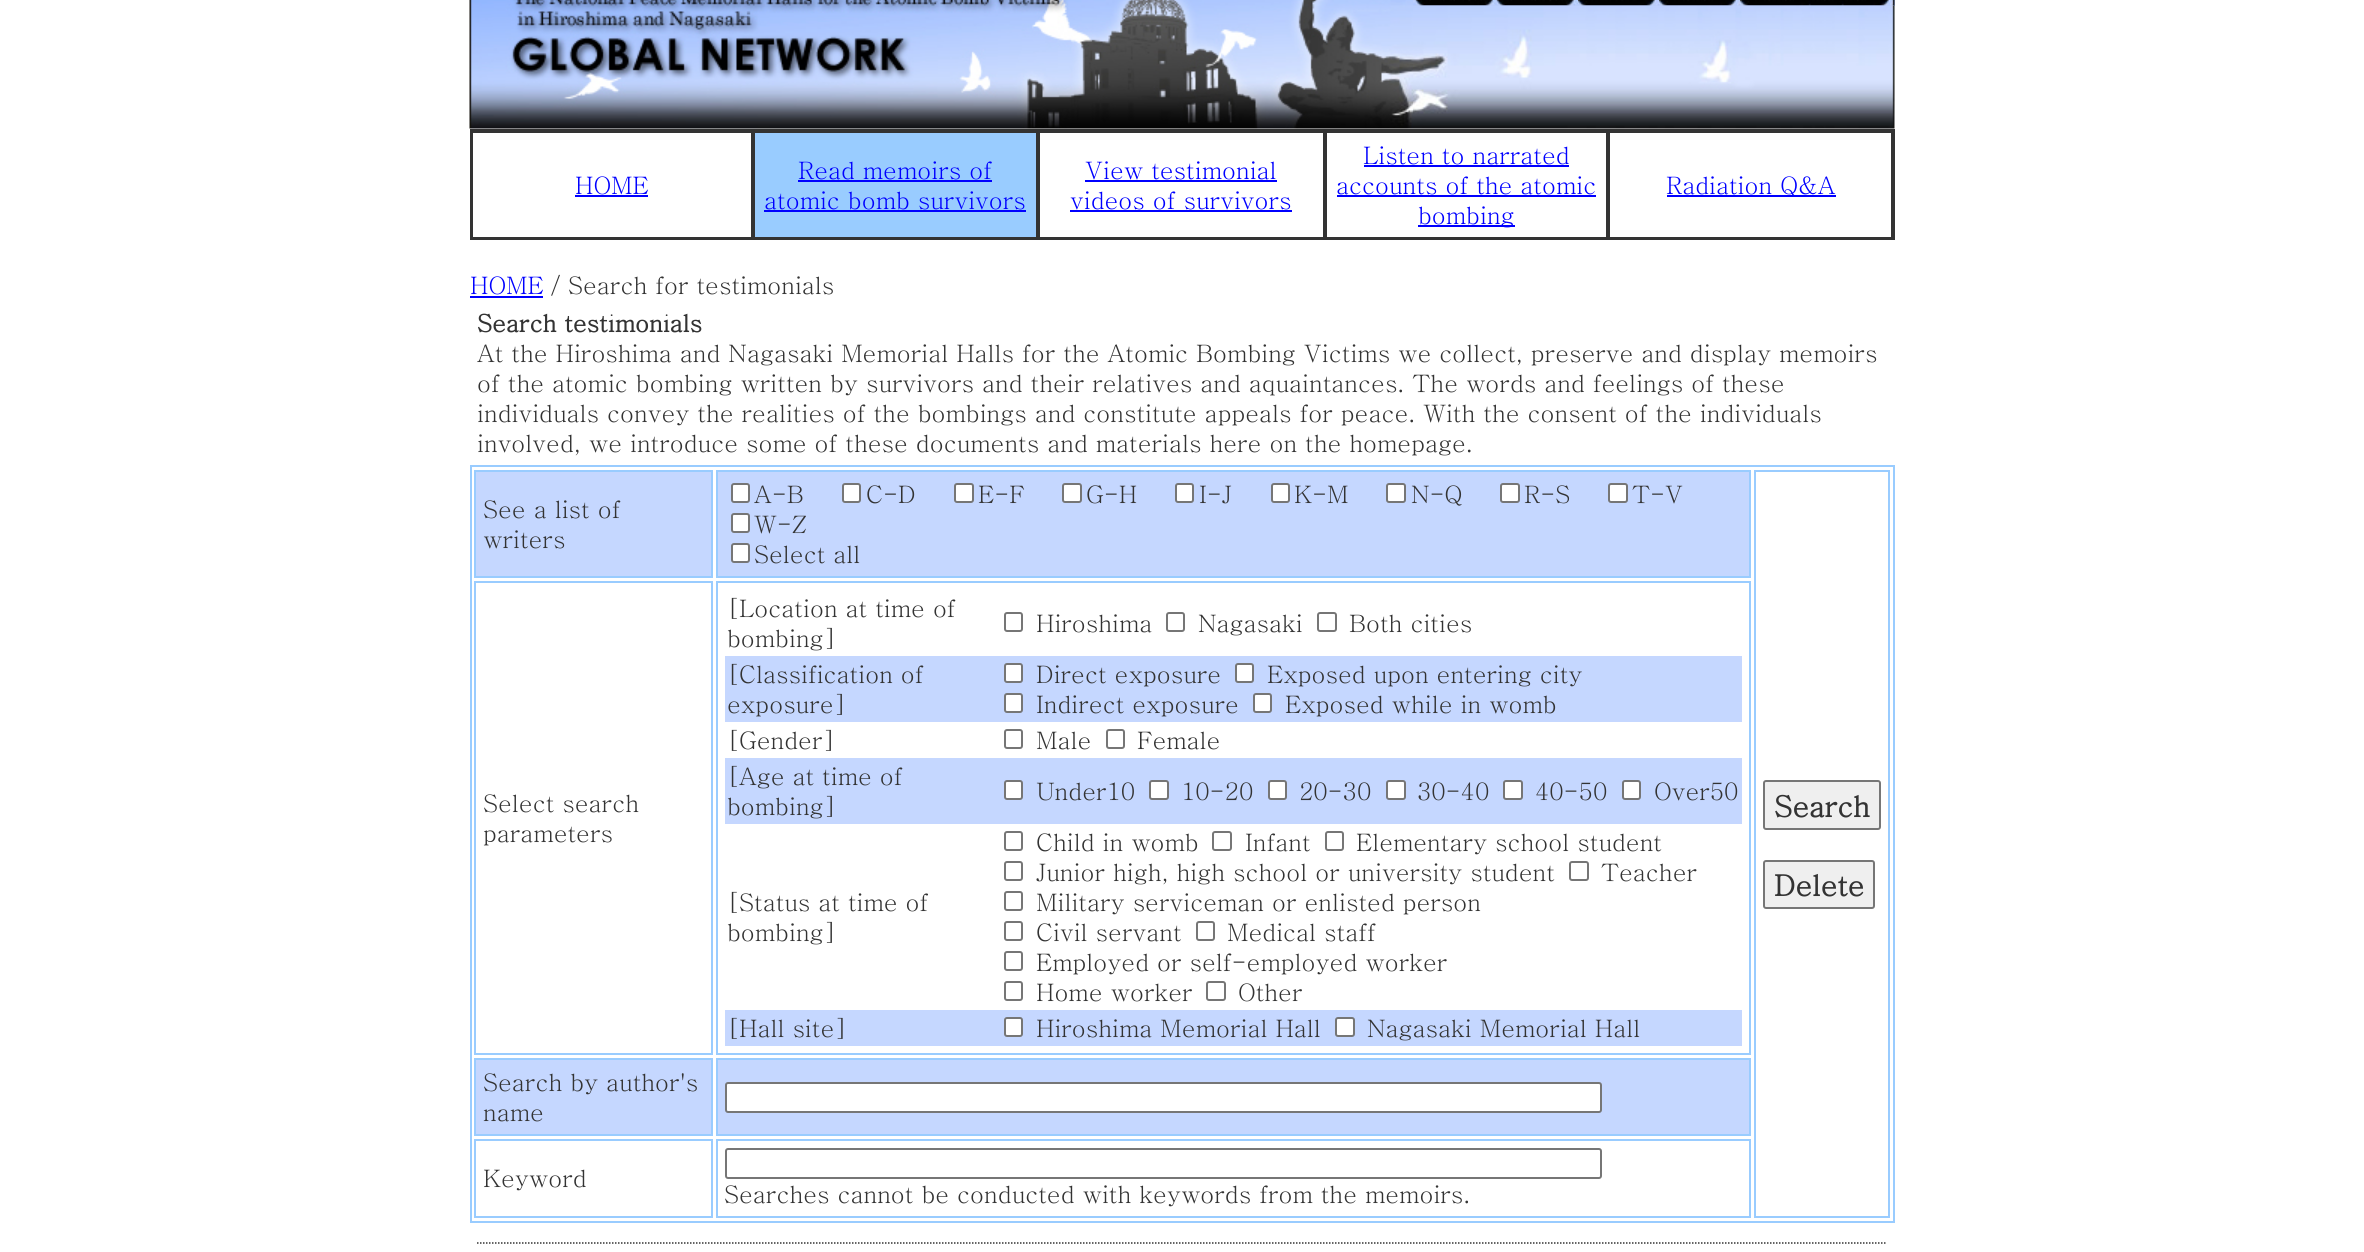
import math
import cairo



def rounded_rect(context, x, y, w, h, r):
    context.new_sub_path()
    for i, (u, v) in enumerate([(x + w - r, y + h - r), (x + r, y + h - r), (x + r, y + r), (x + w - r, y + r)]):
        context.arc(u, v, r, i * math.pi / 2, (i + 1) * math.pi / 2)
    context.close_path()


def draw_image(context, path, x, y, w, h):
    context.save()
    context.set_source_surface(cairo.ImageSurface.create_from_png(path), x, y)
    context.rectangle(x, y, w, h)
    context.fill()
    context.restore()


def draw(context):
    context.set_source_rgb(1, 1, 1)
    context.paint()
    draw_image(context, "images/1.png", 469, 0, 944, 129)
    context.set_source_rgb(180 / 255, 199 / 255, 242 / 255)
    context.rectangle(1413, 0, 482, 6)
    context.fill()
    draw_image(context, "images/2.png", 1413, 0, 83, 6)
    draw_image(context, "images/3.png", 1495, 0, 83, 6)
    draw_image(context, "images/4.png", 1578, 0, 81, 6)
    draw_image(context, "images/5.png", 1659, 0, 81, 6)
    draw_image(context, "images/6.png", 1740, 0, 155, 6)
    draw_image(context, "images/7.png", 1413, 5, 482, 124)
    context.rectangle(471, 130, 1423, 109)
    context.set_source_rgb(51 / 255, 51 / 255, 51 / 255)
    context.stroke()
    context.rectangle(472, 132, 280, 106)
    context.stroke()
    context.set_source_rgb(0, 0, 1)
    context.rectangle(575, 195, 73, 2)
    context.fill()
    context.set_source_rgb(153 / 255, 204 / 255, 1)
    context.rectangle(754, 132, 283, 106)
    context.fill_preserve()
    context.set_source_rgb(51 / 255, 51 / 255, 51 / 255)
    context.stroke()
    context.set_source_rgb(0, 0, 1)
    context.rectangle(798, 180, 194, 2)
    context.fill()
    context.rectangle(764, 210, 262, 2)
    context.fill()
    context.rectangle(1039, 132, 285, 106)
    context.set_source_rgb(51 / 255, 51 / 255, 51 / 255)
    context.stroke()
    context.set_source_rgb(0, 0, 1)
    context.rectangle(1085, 180, 192, 2)
    context.fill()
    context.rectangle(1070, 210, 222, 2)
    context.fill()
    context.rectangle(1326, 132, 281, 106)
    context.set_source_rgb(51 / 255, 51 / 255, 51 / 255)
    context.stroke()
    context.set_source_rgb(0, 0, 1)
    context.rectangle(1364, 165, 205, 2)
    context.fill()
    context.rectangle(1337, 195, 259, 2)
    context.fill()
    context.rectangle(1418, 225, 97, 2)
    context.fill()
    context.rectangle(1609, 132, 283, 106)
    context.set_source_rgb(51 / 255, 51 / 255, 51 / 255)
    context.stroke()
    context.set_source_rgb(0, 0, 1)
    context.rectangle(1667, 195, 169, 2)
    context.fill()
    context.rectangle(470, 296, 73, 2)
    context.fill()
    context.rectangle(471, 466, 1423, 756)
    context.set_source_rgb(153 / 255, 204 / 255, 1)
    context.stroke()
    context.set_source_rgb(197 / 255, 215 / 255, 1)
    context.rectangle(475, 471, 237, 106)
    context.fill_preserve()
    context.set_source_rgb(153 / 255, 204 / 255, 1)
    context.stroke()
    context.set_source_rgb(197 / 255, 215 / 255, 1)
    context.rectangle(717, 471, 1033, 106)
    context.fill_preserve()
    context.set_source_rgb(153 / 255, 204 / 255, 1)
    context.stroke()
    context.set_source_rgb(1, 1, 1)
    rounded_rect(context, 732, 484, 17, 18, 2)
    context.fill_preserve()
    context.set_source_rgb(118 / 255, 118 / 255, 118 / 255)
    context.stroke()
    context.set_source_rgb(1, 1, 1)
    rounded_rect(context, 843, 484, 17, 18, 2)
    context.fill_preserve()
    context.set_source_rgb(118 / 255, 118 / 255, 118 / 255)
    context.stroke()
    context.set_source_rgb(1, 1, 1)
    rounded_rect(context, 955, 484, 18, 18, 2)
    context.fill_preserve()
    context.set_source_rgb(118 / 255, 118 / 255, 118 / 255)
    context.stroke()
    context.set_source_rgb(1, 1, 1)
    rounded_rect(context, 1063, 484, 18, 18, 2)
    context.fill_preserve()
    context.set_source_rgb(118 / 255, 118 / 255, 118 / 255)
    context.stroke()
    context.set_source_rgb(1, 1, 1)
    rounded_rect(context, 1176, 484, 17, 18, 2)
    context.fill_preserve()
    context.set_source_rgb(118 / 255, 118 / 255, 118 / 255)
    context.stroke()
    context.set_source_rgb(1, 1, 1)
    rounded_rect(context, 1272, 484, 17, 18, 2)
    context.fill_preserve()
    context.set_source_rgb(118 / 255, 118 / 255, 118 / 255)
    context.stroke()
    context.set_source_rgb(1, 1, 1)
    rounded_rect(context, 1387, 484, 18, 18, 2)
    context.fill_preserve()
    context.set_source_rgb(118 / 255, 118 / 255, 118 / 255)
    context.stroke()
    context.set_source_rgb(1, 1, 1)
    rounded_rect(context, 1501, 484, 18, 18, 2)
    context.fill_preserve()
    context.set_source_rgb(118 / 255, 118 / 255, 118 / 255)
    context.stroke()
    context.set_source_rgb(1, 1, 1)
    rounded_rect(context, 1609, 484, 18, 18, 2)
    context.fill_preserve()
    context.set_source_rgb(118 / 255, 118 / 255, 118 / 255)
    context.stroke()
    context.set_source_rgb(1, 1, 1)
    rounded_rect(context, 732, 514, 17, 18, 2)
    context.fill_preserve()
    context.set_source_rgb(118 / 255, 118 / 255, 118 / 255)
    context.stroke()
    context.set_source_rgb(1, 1, 1)
    rounded_rect(context, 732, 544, 17, 18, 2)
    context.fill_preserve()
    context.set_source_rgb(118 / 255, 118 / 255, 118 / 255)
    context.stroke()
    context.rectangle(1755, 471, 134, 746)
    context.set_source_rgb(153 / 255, 204 / 255, 1)
    context.stroke()
    context.set_source_rgb(239 / 255, 239 / 255, 239 / 255)
    rounded_rect(context, 1764, 781, 116, 48, 2)
    context.fill_preserve()
    context.set_source_rgb(118 / 255, 118 / 255, 118 / 255)
    context.stroke()
    context.set_source_rgb(239 / 255, 239 / 255, 239 / 255)
    rounded_rect(context, 1764, 861, 110, 47, 2)
    context.fill_preserve()
    context.set_source_rgb(118 / 255, 118 / 255, 118 / 255)
    context.stroke()
    context.rectangle(475, 582, 237, 472)
    context.set_source_rgb(153 / 255, 204 / 255, 1)
    context.stroke()
    context.rectangle(717, 582, 1033, 472)
    context.stroke()
    rounded_rect(context, 1005, 613, 17, 18, 2)
    context.set_source_rgb(118 / 255, 118 / 255, 118 / 255)
    context.stroke()
    rounded_rect(context, 1167, 613, 17, 18, 2)
    context.stroke()
    rounded_rect(context, 1318, 613, 18, 18, 2)
    context.stroke()
    context.set_source_rgb(197 / 255, 215 / 255, 1)
    context.rectangle(725, 656, 1017, 66)
    context.fill()
    context.set_source_rgb(1, 1, 1)
    rounded_rect(context, 1005, 664, 17, 18, 2)
    context.fill_preserve()
    context.set_source_rgb(118 / 255, 118 / 255, 118 / 255)
    context.stroke()
    context.set_source_rgb(1, 1, 1)
    rounded_rect(context, 1236, 664, 17, 18, 2)
    context.fill_preserve()
    context.set_source_rgb(118 / 255, 118 / 255, 118 / 255)
    context.stroke()
    context.set_source_rgb(1, 1, 1)
    rounded_rect(context, 1005, 694, 17, 18, 2)
    context.fill_preserve()
    context.set_source_rgb(118 / 255, 118 / 255, 118 / 255)
    context.stroke()
    context.set_source_rgb(1, 1, 1)
    rounded_rect(context, 1254, 694, 17, 18, 2)
    context.fill_preserve()
    context.set_source_rgb(118 / 255, 118 / 255, 118 / 255)
    context.stroke()
    rounded_rect(context, 1005, 730, 17, 18, 2)
    context.stroke()
    rounded_rect(context, 1107, 730, 17, 18, 2)
    context.stroke()
    context.set_source_rgb(197 / 255, 215 / 255, 1)
    context.rectangle(725, 758, 1017, 66)
    context.fill()
    context.set_source_rgb(1, 1, 1)
    rounded_rect(context, 1005, 781, 17, 18, 2)
    context.fill_preserve()
    context.set_source_rgb(118 / 255, 118 / 255, 118 / 255)
    context.stroke()
    context.set_source_rgb(1, 1, 1)
    rounded_rect(context, 1150, 781, 18, 18, 2)
    context.fill_preserve()
    context.set_source_rgb(118 / 255, 118 / 255, 118 / 255)
    context.stroke()
    context.set_source_rgb(1, 1, 1)
    rounded_rect(context, 1269, 781, 17, 18, 2)
    context.fill_preserve()
    context.set_source_rgb(118 / 255, 118 / 255, 118 / 255)
    context.stroke()
    context.set_source_rgb(1, 1, 1)
    rounded_rect(context, 1387, 781, 18, 18, 2)
    context.fill_preserve()
    context.set_source_rgb(118 / 255, 118 / 255, 118 / 255)
    context.stroke()
    context.set_source_rgb(1, 1, 1)
    rounded_rect(context, 1504, 781, 18, 18, 2)
    context.fill_preserve()
    context.set_source_rgb(118 / 255, 118 / 255, 118 / 255)
    context.stroke()
    context.set_source_rgb(1, 1, 1)
    rounded_rect(context, 1623, 781, 17, 18, 2)
    context.fill_preserve()
    context.set_source_rgb(118 / 255, 118 / 255, 118 / 255)
    context.stroke()
    rounded_rect(context, 1005, 832, 17, 18, 2)
    context.stroke()
    rounded_rect(context, 1213, 832, 18, 18, 2)
    context.stroke()
    rounded_rect(context, 1326, 832, 17, 18, 2)
    context.stroke()
    rounded_rect(context, 1005, 862, 17, 18, 2)
    context.stroke()
    rounded_rect(context, 1570, 862, 18, 18, 2)
    context.stroke()
    rounded_rect(context, 1005, 892, 17, 18, 2)
    context.stroke()
    rounded_rect(context, 1005, 922, 17, 18, 2)
    context.stroke()
    rounded_rect(context, 1197, 922, 17, 18, 2)
    context.stroke()
    rounded_rect(context, 1005, 952, 17, 18, 2)
    context.stroke()
    rounded_rect(context, 1005, 982, 17, 18, 2)
    context.stroke()
    rounded_rect(context, 1207, 982, 18, 18, 2)
    context.stroke()
    context.set_source_rgb(197 / 255, 215 / 255, 1)
    context.rectangle(725, 1010, 1017, 36)
    context.fill()
    context.set_source_rgb(1, 1, 1)
    rounded_rect(context, 1005, 1018, 17, 18, 2)
    context.fill_preserve()
    context.set_source_rgb(118 / 255, 118 / 255, 118 / 255)
    context.stroke()
    context.set_source_rgb(1, 1, 1)
    rounded_rect(context, 1336, 1018, 18, 18, 2)
    context.fill_preserve()
    context.set_source_rgb(118 / 255, 118 / 255, 118 / 255)
    context.stroke()
    context.set_source_rgb(197 / 255, 215 / 255, 1)
    context.rectangle(475, 1059, 237, 76)
    context.fill_preserve()
    context.set_source_rgb(153 / 255, 204 / 255, 1)
    context.stroke()
    context.set_source_rgb(197 / 255, 215 / 255, 1)
    context.rectangle(717, 1059, 1033, 76)
    context.fill_preserve()
    context.set_source_rgb(153 / 255, 204 / 255, 1)
    context.stroke()
    context.set_source_rgb(1, 1, 1)
    rounded_rect(context, 726, 1083, 875, 29, 2)
    context.fill_preserve()
    context.set_source_rgb(118 / 255, 118 / 255, 118 / 255)
    context.stroke()
    context.rectangle(475, 1140, 237, 77)
    context.set_source_rgb(153 / 255, 204 / 255, 1)
    context.stroke()
    context.rectangle(717, 1140, 1033, 77)
    context.stroke()
    rounded_rect(context, 726, 1149, 875, 29, 2)
    context.set_source_rgb(118 / 255, 118 / 255, 118 / 255)
    context.stroke()
    context.new_path()
    context.move_to(477, 1243)
    context.line_to(1887, 1243)
    context.set_source_rgb(51 / 255, 51 / 255, 51 / 255)
    context.set_line_width(1.5)
    context.set_dash([1.5, 1.5])
    context.stroke()
    context.select_font_face("Batang")
    context.set_font_size(24)
    context.set_source_rgb(0, 0, 1)
    context.move_to(575, 194)
    context.show_text("HOME")
    context.move_to(798, 179)
    context.show_text("Read memoirs of")
    context.move_to(764, 209)
    context.show_text("atomic bomb survivors")
    context.move_to(1085, 179)
    context.show_text("View testimonial")
    context.move_to(1070, 209)
    context.show_text("videos of survivors")
    context.move_to(1363, 164)
    context.show_text("Listen to narrated")
    context.move_to(1336, 194)
    context.show_text("accounts of the atomic")
    context.move_to(1418, 224)
    context.show_text("bombing")
    context.move_to(1666, 194)
    context.show_text("Radiation Q&A")
    context.move_to(470, 294)
    context.show_text("HOME")
    context.set_source_rgb(51 / 255, 51 / 255, 51 / 255)
    context.move_to(551, 294)
    context.show_text("/ Search for testimonials")
    context.select_font_face("Batang", cairo.FontSlant.NORMAL, cairo.FontWeight.BOLD)
    context.move_to(477, 332)
    context.show_text("Search testimonials")
    context.select_font_face("Batang")
    context.move_to(477, 362)
    context.show_text("At the Hiroshima and Nagasaki Memorial Halls for the Atomic Bombing Victims we collect, preserve and display memoirs")
    context.move_to(477, 392)
    context.show_text("of the atomic bombing written by survivors and their relatives and aquaintances. The words and feelings of these")
    context.move_to(477, 422)
    context.show_text("individuals convey the realities of the bombings and constitute appeals for peace. With the consent of the individuals")
    context.move_to(477, 452)
    context.show_text("involved, we introduce some of these documents and materials here on the homepage.")
    context.move_to(483, 518)
    context.show_text("See a list of")
    context.move_to(483, 548)
    context.show_text("writers")
    context.move_to(754, 503)
    context.show_text("A-B")
    context.move_to(866, 503)
    context.show_text("C-D")
    context.move_to(978, 503)
    context.show_text("E-F")
    context.move_to(1086, 503)
    context.show_text("G-H")
    context.move_to(1199, 503)
    context.show_text("I-J")
    context.move_to(1294, 503)
    context.show_text("K-M")
    context.move_to(1411, 503)
    context.show_text("N-Q")
    context.move_to(1524, 503)
    context.show_text("R-S")
    context.move_to(1632, 503)
    context.show_text("T-V")
    context.move_to(754, 533)
    context.show_text("W-Z")
    context.move_to(754, 563)
    context.show_text("Select all")
    context.select_font_face("Batang", cairo.FontSlant.NORMAL, cairo.FontWeight.BOLD)
    context.set_font_size(29)
    context.move_to(1774, 817)
    context.show_text("Search")
    context.move_to(1774, 896)
    context.show_text("Delete")
    context.select_font_face("Batang")
    context.set_font_size(24)
    context.move_to(483, 812)
    context.show_text("Select search")
    context.move_to(483, 842)
    context.show_text("parameters")
    context.move_to(727, 617)
    context.show_text("[Location at time of")
    context.move_to(727, 647)
    context.show_text("bombing]")
    context.move_to(1036, 632)
    context.show_text("Hiroshima")
    context.move_to(1198, 632)
    context.show_text("Nagasaki")
    context.move_to(1349, 632)
    context.show_text("Both cities")
    context.move_to(727, 683)
    context.show_text("[Classification of")
    context.move_to(727, 713)
    context.show_text("exposure]")
    context.move_to(1036, 683)
    context.show_text("Direct exposure")
    context.move_to(1267, 683)
    context.show_text("Exposed upon entering city")
    context.move_to(1036, 713)
    context.show_text("Indirect exposure")
    context.move_to(1285, 713)
    context.show_text("Exposed while in womb")
    context.move_to(727, 749)
    context.show_text("[Gender]")
    context.move_to(1036, 749)
    context.show_text("Male")
    context.move_to(1137, 749)
    context.show_text("Female")
    context.move_to(727, 785)
    context.show_text("[Age at time of")
    context.move_to(727, 815)
    context.show_text("bombing]")
    context.move_to(1036, 800)
    context.show_text("Under10")
    context.move_to(1181, 800)
    context.show_text("10-20")
    context.move_to(1299, 800)
    context.show_text("20-30")
    context.move_to(1417, 800)
    context.show_text("30-40")
    context.move_to(1535, 800)
    context.show_text("40-50")
    context.move_to(1654, 800)
    context.show_text("Over50")
    context.move_to(727, 911)
    context.show_text("[Status at time of")
    context.move_to(727, 941)
    context.show_text("bombing]")
    context.move_to(1036, 851)
    context.show_text("Child in womb")
    context.move_to(1245, 851)
    context.show_text("Infant")
    context.move_to(1356, 851)
    context.show_text("Elementary school student")
    context.move_to(1036, 881)
    context.show_text("Junior high, high school or university student")
    context.move_to(1601, 881)
    context.show_text("Teacher")
    context.move_to(1036, 911)
    context.show_text("Military serviceman or enlisted person")
    context.move_to(1036, 941)
    context.show_text("Civil servant")
    context.move_to(1227, 941)
    context.show_text("Medical staff")
    context.move_to(1036, 971)
    context.show_text("Employed or self-employed worker")
    context.move_to(1036, 1001)
    context.show_text("Home worker")
    context.move_to(1238, 1001)
    context.show_text("Other")
    context.move_to(727, 1037)
    context.show_text("[Hall site]")
    context.move_to(1036, 1037)
    context.show_text("Hiroshima Memorial Hall")
    context.move_to(1367, 1037)
    context.show_text("Nagasaki Memorial Hall")
    context.move_to(483, 1091)
    context.show_text("Search by author's")
    context.move_to(483, 1121)
    context.show_text("name")
    context.move_to(483, 1187)
    context.show_text("Keyword")
    context.move_to(724, 1203)
    context.show_text("Searches cannot be conducted with keywords from the memoirs.")


surface = cairo.ImageSurface(cairo.Format.RGB24, 2364, 1252)
context = cairo.Context(surface)
options = cairo.FontOptions()
options.set_hint_metrics(cairo.HintMetrics.OFF)
options.set_hint_style(cairo.HintStyle.NONE)
context.set_font_options(options)
context.set_miter_limit(4)
draw(context)
surface.write_to_png("out.png")
